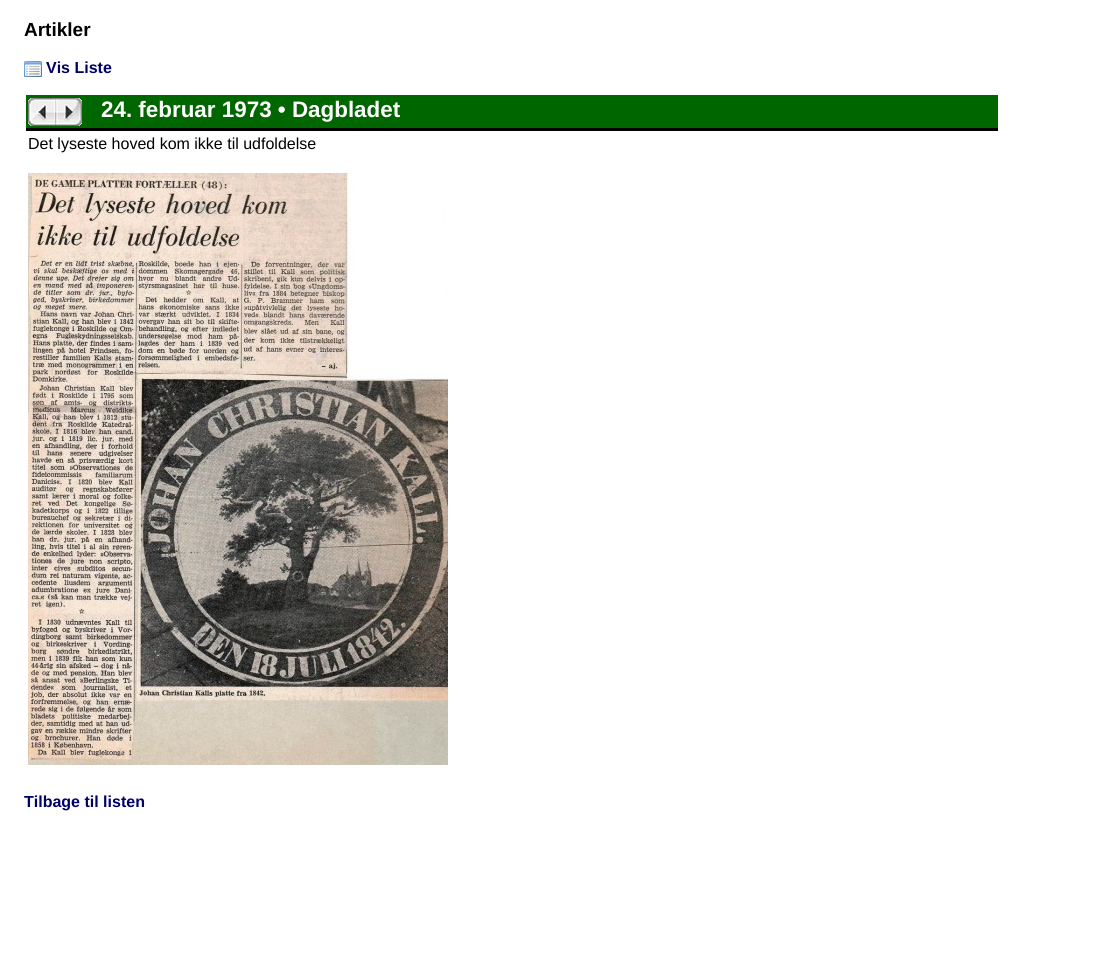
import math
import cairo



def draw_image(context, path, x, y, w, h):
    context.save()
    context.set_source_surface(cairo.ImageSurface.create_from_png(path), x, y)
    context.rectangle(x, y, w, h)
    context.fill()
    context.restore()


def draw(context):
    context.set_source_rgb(1, 1, 1)
    context.paint()
    draw_image(context, "images/1.png", 24, 61, 18, 16)
    context.set_source_rgb(0, 102 / 255, 0)
    context.rectangle(26, 95, 972, 33)
    context.fill()
    context.set_source_rgb(0, 0, 0)
    context.rectangle(26, 128, 972, 3)
    context.fill()
    draw_image(context, "images/2.png", 28, 98, 27, 28)
    draw_image(context, "images/3.png", 55, 98, 27, 28)
    draw_image(context, "images/4.png", 28, 173, 420, 592)
    context.select_font_face("Liberation Sans", cairo.FontSlant.NORMAL, cairo.FontWeight.BOLD)
    context.set_font_size(19)
    context.move_to(24, 36)
    context.show_text("Artikler")
    context.set_font_size(16)
    context.set_source_rgb(0, 0, 102 / 255)
    context.move_to(46, 73)
    context.show_text("Vis Liste")
    context.set_font_size(22.4)
    context.set_source_rgb(1, 1, 1)
    context.move_to(101, 117)
    context.show_text("24. februar 1973 • Dagbladet")
    context.select_font_face("Liberation Sans")
    context.set_font_size(16)
    context.set_source_rgb(0, 0, 0)
    context.move_to(28, 149)
    context.show_text("Det lyseste hoved kom ikke til udfoldelse")
    context.select_font_face("Liberation Sans", cairo.FontSlant.NORMAL, cairo.FontWeight.BOLD)
    context.set_source_rgb(0, 0, 102 / 255)
    context.move_to(24, 807)
    context.show_text("Tilbage til listen")


surface = cairo.ImageSurface(cairo.Format.RGB24, 1107, 980)
context = cairo.Context(surface)
options = cairo.FontOptions()
options.set_hint_metrics(cairo.HintMetrics.OFF)
options.set_hint_style(cairo.HintStyle.NONE)
context.set_font_options(options)
context.set_miter_limit(4)
draw(context)
surface.write_to_png("out.png")
